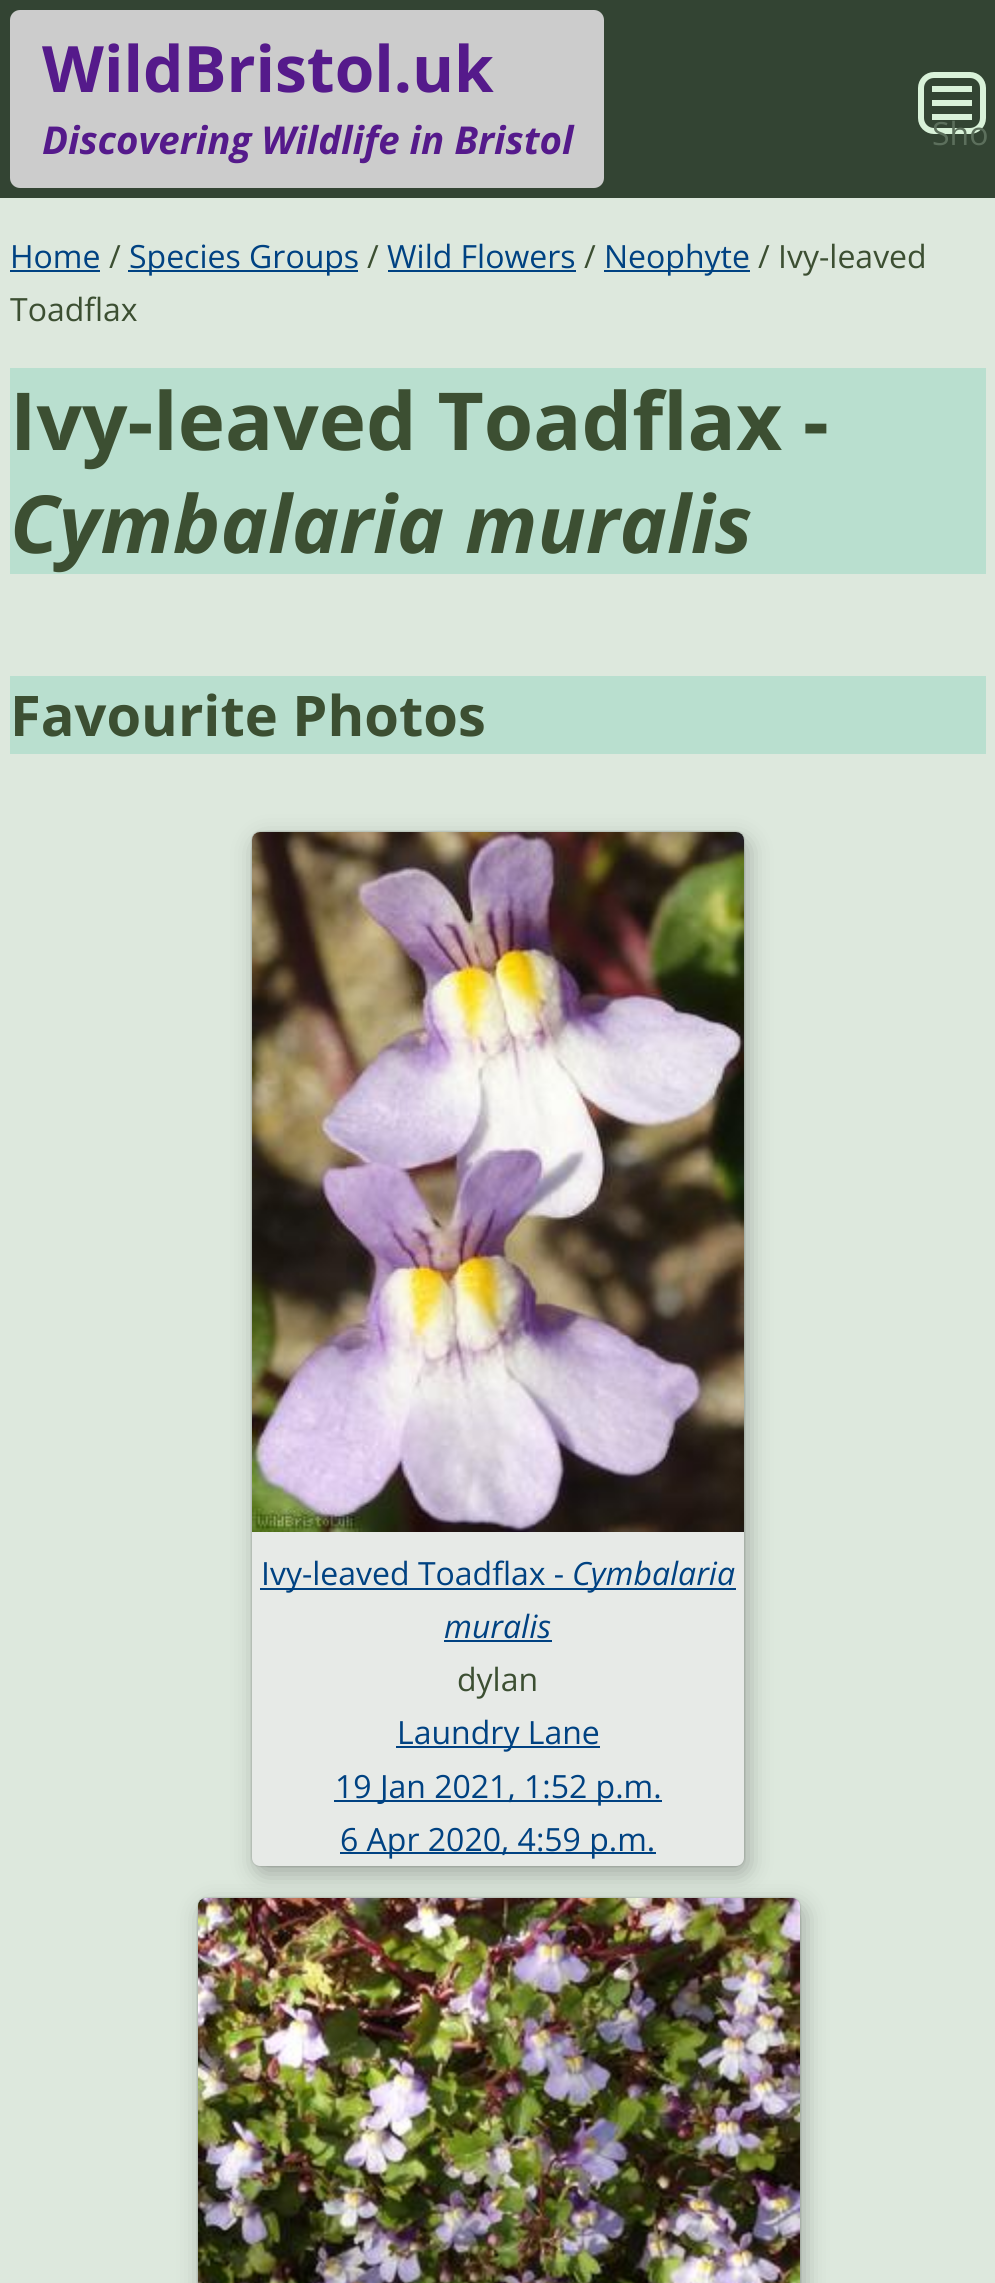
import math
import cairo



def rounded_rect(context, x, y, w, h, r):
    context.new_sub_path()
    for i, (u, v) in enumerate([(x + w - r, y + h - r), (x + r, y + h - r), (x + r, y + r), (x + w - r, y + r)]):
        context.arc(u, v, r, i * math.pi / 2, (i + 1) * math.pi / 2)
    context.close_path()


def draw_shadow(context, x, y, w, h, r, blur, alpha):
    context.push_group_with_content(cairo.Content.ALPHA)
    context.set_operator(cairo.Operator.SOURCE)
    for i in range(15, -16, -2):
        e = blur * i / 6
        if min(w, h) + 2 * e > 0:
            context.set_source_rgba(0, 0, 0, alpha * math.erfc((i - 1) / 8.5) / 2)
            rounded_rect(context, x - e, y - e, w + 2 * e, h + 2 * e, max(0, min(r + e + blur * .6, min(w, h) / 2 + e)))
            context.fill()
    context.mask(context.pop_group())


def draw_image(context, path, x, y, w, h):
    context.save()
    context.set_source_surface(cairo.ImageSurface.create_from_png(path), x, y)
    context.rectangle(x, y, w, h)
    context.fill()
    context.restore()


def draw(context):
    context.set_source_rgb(51 / 255, 68 / 255, 51 / 255)
    context.paint()
    context.set_source_rgb(204 / 255, 204 / 255, 204 / 255)
    rounded_rect(context, 10, 10, 594, 178, 10)
    context.fill()
    rounded_rect(context, 921, 75, 62, 56, 13)
    context.set_source_rgb(217 / 255, 242 / 255, 217 / 255)
    context.set_line_width(6)
    context.stroke()
    context.rectangle(932, 86, 40, 6)
    context.fill()
    context.rectangle(932, 100, 40, 6)
    context.fill()
    context.rectangle(932, 114, 40, 6)
    context.fill()
    context.set_source_rgb(221 / 255, 232 / 255, 221 / 255)
    context.rectangle(0, 198, 995, 2085)
    context.fill()
    context.set_source_rgb(0, 66 / 255, 130 / 255)
    context.rectangle(10, 270, 90, 2)
    context.fill()
    context.rectangle(128, 270, 230, 2)
    context.fill()
    context.rectangle(388, 270, 188, 2)
    context.fill()
    context.rectangle(604, 270, 146, 2)
    context.fill()
    context.set_source_rgb(185 / 255, 223 / 255, 207 / 255)
    context.rectangle(10, 368, 976, 206)
    context.fill()
    context.rectangle(10, 676, 976, 78)
    context.fill()
    context.set_source_rgb(0, 0, 0)
    draw_shadow(context, 256, 840, 492, 1034, 8, 12, 0.27)
    draw_shadow(context, 252, 832, 492, 1034, 8, 1, 0.27)
    context.set_source_rgb(231 / 255, 234 / 255, 231 / 255)
    rounded_rect(context, 252, 832, 492, 1034, 8)
    context.fill()
    draw_image(context, "images/1.png", 252, 832, 492, 700)
    context.set_source_rgb(0, 66 / 255, 130 / 255)
    context.rectangle(260, 1588, 476, 2)
    context.fill()
    context.rectangle(444, 1640, 108, 2)
    context.fill()
    context.rectangle(396, 1746, 204, 2)
    context.fill()
    context.rectangle(334, 1800, 328, 2)
    context.fill()
    context.rectangle(340, 1852, 316, 2)
    context.fill()
    context.set_source_rgb(0, 0, 0)
    draw_shadow(context, 202, 1906, 602, 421, 8, 12, 0.27)
    draw_shadow(context, 198, 1898, 602, 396, 8, 1, 0.27)
    draw_image(context, "images/2.png", 198, 1898, 602, 385)
    context.select_font_face("Open Sans", cairo.FontSlant.NORMAL, cairo.FontWeight.BOLD)
    context.set_font_size(64)
    context.set_source_rgb(85 / 255, 26 / 255, 139 / 255)
    context.move_to(42, 92)
    context.show_text("WildBristol.uk")
    context.select_font_face("Open Sans", cairo.FontSlant.ITALIC, cairo.FontWeight.BOLD)
    context.set_font_size(38.4)
    context.move_to(42, 154)
    context.show_text("Discovering Wildlife in Bristol")
    context.select_font_face("Open Sans")
    context.set_font_size(32)
    context.set_source_rgb(92 / 255, 111 / 255, 92 / 255)
    context.move_to(932, 145)
    context.show_text("Sho")
    context.set_source_rgb(0, 66 / 255, 130 / 255)
    context.move_to(10, 268)
    context.show_text("Home")
    context.set_source_rgb(60 / 255, 79 / 255, 50 / 255)
    context.move_to(109, 268)
    context.show_text("/")
    context.set_source_rgb(0, 66 / 255, 130 / 255)
    context.move_to(129, 268)
    context.show_text("Species Groups")
    context.set_source_rgb(60 / 255, 79 / 255, 50 / 255)
    context.move_to(367, 268)
    context.show_text("/")
    context.set_source_rgb(0, 66 / 255, 130 / 255)
    context.move_to(387, 268)
    context.show_text("Wild Flowers")
    context.set_source_rgb(60 / 255, 79 / 255, 50 / 255)
    context.move_to(584, 268)
    context.show_text("/")
    context.set_source_rgb(0, 66 / 255, 130 / 255)
    context.move_to(604, 268)
    context.show_text("Neophyte")
    context.set_source_rgb(60 / 255, 79 / 255, 50 / 255)
    context.move_to(758, 268)
    context.show_text("/ Ivy-leaved")
    context.move_to(10, 321)
    context.show_text("Toadflax")
    context.select_font_face("Open Sans", cairo.FontSlant.NORMAL, cairo.FontWeight.BOLD)
    context.set_font_size(80)
    context.move_to(10, 450)
    context.show_text("Ivy-leaved Toadflax -")
    context.select_font_face("Open Sans", cairo.FontSlant.ITALIC, cairo.FontWeight.BOLD)
    context.move_to(10, 553)
    context.show_text("Cymbalaria muralis")
    context.select_font_face("Open Sans", cairo.FontSlant.NORMAL, cairo.FontWeight.BOLD)
    context.set_font_size(56)
    context.move_to(10, 736)
    context.show_text("Favourite Photos")
    context.select_font_face("Open Sans")
    context.set_font_size(32)
    context.set_source_rgb(0, 66 / 255, 130 / 255)
    context.move_to(261, 1585)
    context.show_text("Ivy-leaved Toadflax -")
    context.select_font_face("Open Sans", cairo.FontSlant.ITALIC)
    context.move_to(572, 1585)
    context.show_text("Cymbalaria")
    context.move_to(444, 1638)
    context.show_text("muralis")
    context.select_font_face("Open Sans")
    context.set_source_rgb(60 / 255, 79 / 255, 50 / 255)
    context.move_to(457, 1691)
    context.show_text("dylan")
    context.set_source_rgb(0, 66 / 255, 130 / 255)
    context.move_to(397, 1744)
    context.show_text("Laundry Lane")
    context.move_to(335, 1798)
    context.show_text("19 Jan 2021, 1:52 p.m.")
    context.move_to(340, 1851)
    context.show_text("6 Apr 2020, 4:59 p.m.")


surface = cairo.ImageSurface(cairo.Format.RGB24, 995, 2283)
context = cairo.Context(surface)
options = cairo.FontOptions()
options.set_hint_metrics(cairo.HintMetrics.OFF)
options.set_hint_style(cairo.HintStyle.NONE)
context.set_font_options(options)
context.set_miter_limit(4)
draw(context)
surface.write_to_png("out.png")
